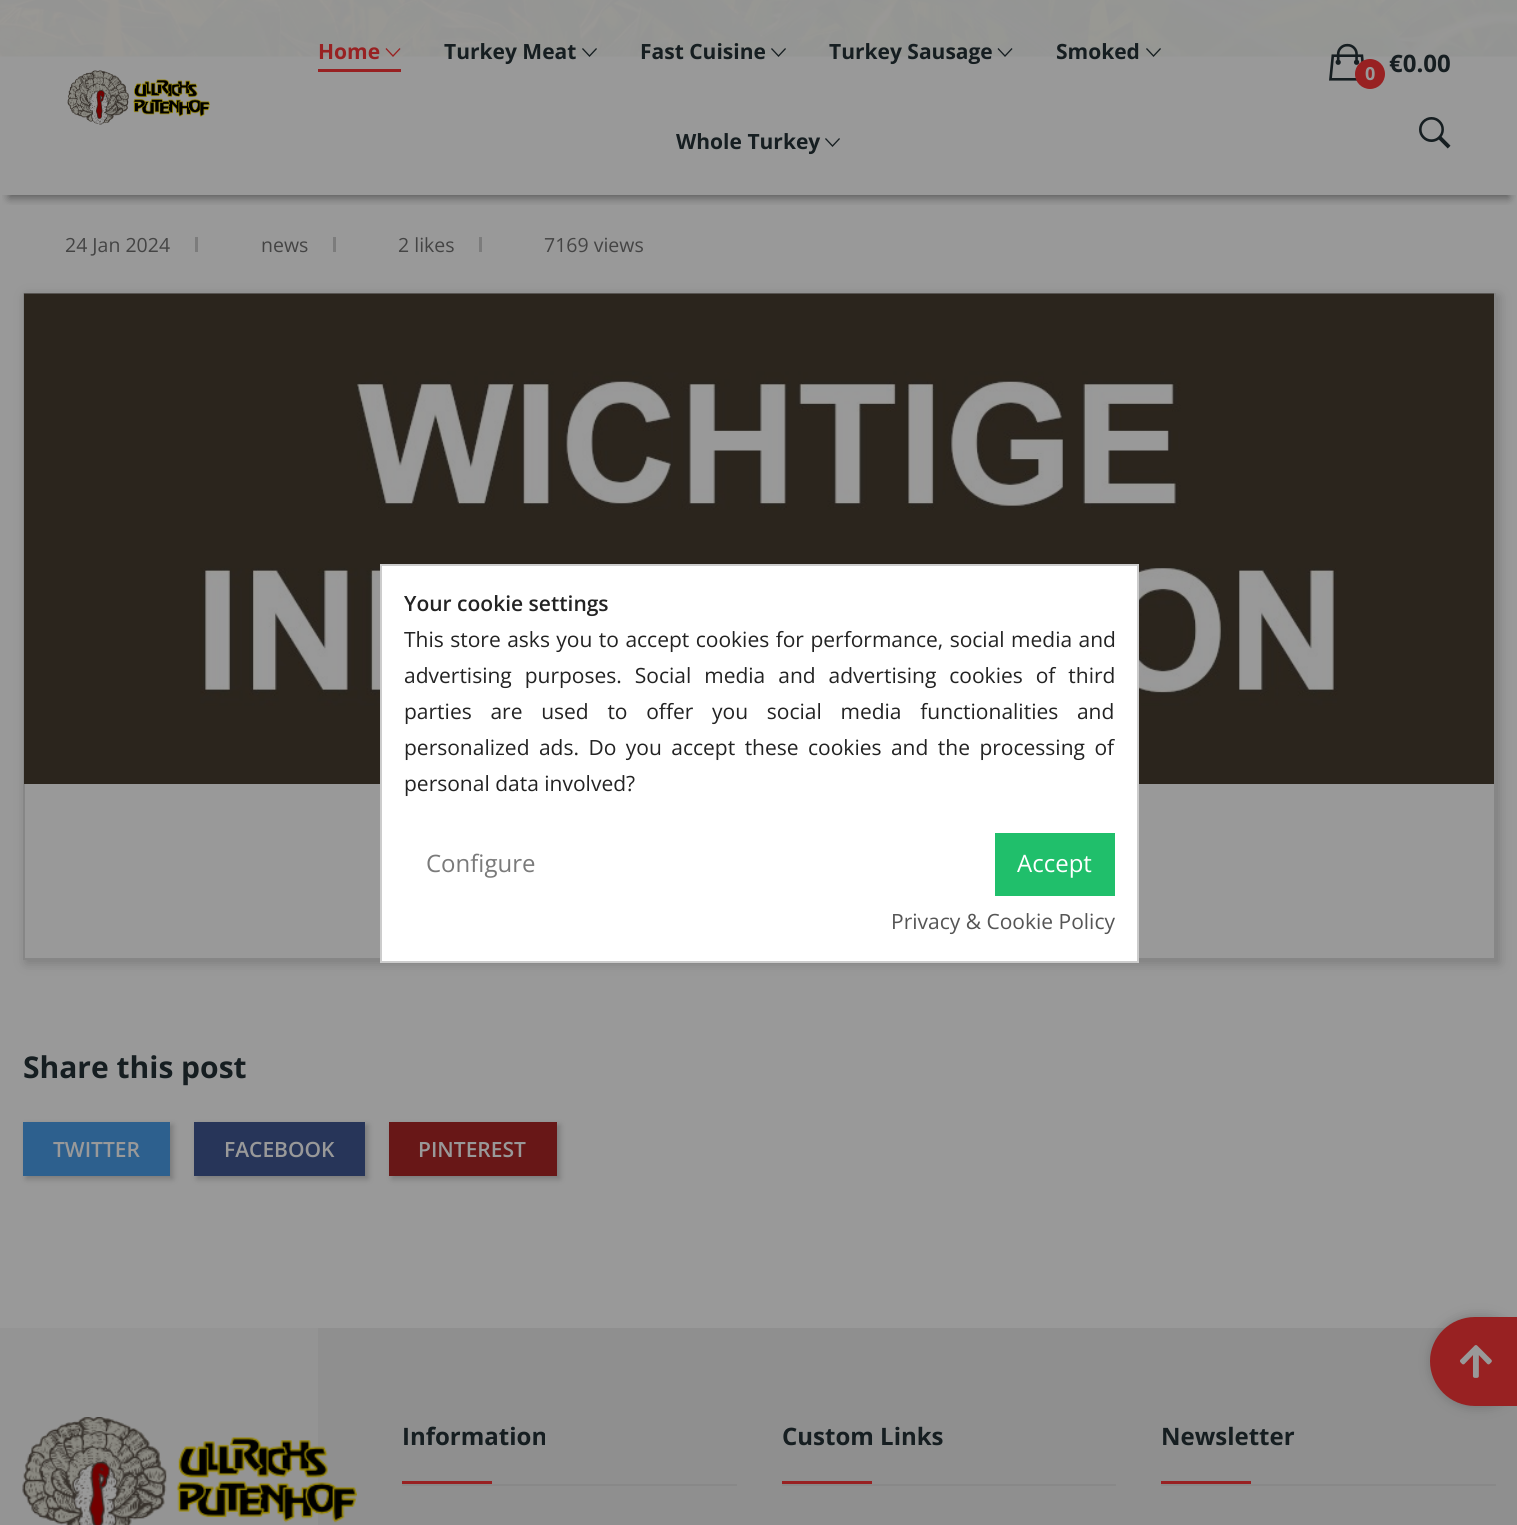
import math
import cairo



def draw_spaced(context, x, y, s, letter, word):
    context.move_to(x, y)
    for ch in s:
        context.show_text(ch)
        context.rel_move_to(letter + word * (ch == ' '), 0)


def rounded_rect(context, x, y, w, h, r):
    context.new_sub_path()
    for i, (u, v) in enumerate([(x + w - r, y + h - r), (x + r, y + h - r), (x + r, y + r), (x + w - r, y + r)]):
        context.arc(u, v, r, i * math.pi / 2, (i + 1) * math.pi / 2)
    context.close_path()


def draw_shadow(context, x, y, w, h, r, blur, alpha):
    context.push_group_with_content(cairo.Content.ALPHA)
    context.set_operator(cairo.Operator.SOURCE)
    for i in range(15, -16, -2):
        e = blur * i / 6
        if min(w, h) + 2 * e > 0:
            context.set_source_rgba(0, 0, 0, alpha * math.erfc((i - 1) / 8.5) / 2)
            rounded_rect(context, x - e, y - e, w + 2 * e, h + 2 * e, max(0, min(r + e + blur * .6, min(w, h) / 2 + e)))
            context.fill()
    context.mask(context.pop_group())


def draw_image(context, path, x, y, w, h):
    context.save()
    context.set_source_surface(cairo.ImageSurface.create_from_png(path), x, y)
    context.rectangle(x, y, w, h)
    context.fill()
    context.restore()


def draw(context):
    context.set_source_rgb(153 / 255, 153 / 255, 153 / 255)
    context.paint()
    draw_image(context, "images/1.png", 0, 0, 1517, 57)
    context.save()
    context.rectangle(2, 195, 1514, 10)
    context.clip()
    context.set_source_rgb(0, 0, 0)
    draw_shadow(context, 9, 21, 1500, 177, 0, 4.5, 0.4)
    context.restore()
    draw_image(context, "images/2.png", 67, 70, 143, 55)
    context.set_source_rgb(152 / 255, 33 / 255, 34 / 255)
    context.rectangle(318, 69, 83, 3)
    context.fill()
    draw_image(context, "images/3.png", 385, 48, 16, 9)
    draw_image(context, "images/4.png", 582, 48, 15, 9)
    draw_image(context, "images/5.png", 771, 48, 15, 9)
    draw_image(context, "images/6.png", 997, 48, 16, 9)
    draw_image(context, "images/7.png", 1146, 48, 15, 9)
    draw_image(context, "images/8.png", 825, 138, 15, 9)
    draw_image(context, "images/9.png", 1329, 43, 35, 38)
    context.arc(1370, 74, 15, 0, 2 * math.pi)
    context.fill()
    draw_image(context, "images/10.png", 1419, 117, 32, 32)
    context.set_source_rgb(124 / 255, 124 / 255, 124 / 255)
    context.rectangle(195, 237, 3, 15)
    context.fill()
    context.rectangle(333, 237, 3, 15)
    context.fill()
    context.rectangle(479, 237, 3, 15)
    context.fill()
    context.set_source_rgb(0, 0, 0)
    draw_shadow(context, 26, 296, 1473, 667, 0, 6, 0.2)
    context.set_source_rgb(153 / 255, 153 / 255, 153 / 255)
    context.rectangle(25, 784, 1469, 174)
    context.fill()
    context.rectangle(24, 294, 1471, 665)
    context.set_source_rgb(134 / 255, 134 / 255, 134 / 255)
    context.stroke()
    draw_image(context, "images/11.png", 24, 293, 1470, 491)
    context.set_source_rgb(0, 0, 0)
    draw_shadow(context, 26, 1125, 147, 54, 0, 3, 0.2)
    context.set_source_rgb(45 / 255, 96 / 255, 142 / 255)
    context.rectangle(23, 1122, 147, 54)
    context.fill()
    context.set_source_rgb(0, 0, 0)
    draw_shadow(context, 197, 1125, 171, 54, 0, 3, 0.2)
    context.set_source_rgb(39 / 255, 53 / 255, 89 / 255)
    context.rectangle(194, 1122, 171, 54)
    context.fill()
    context.set_source_rgb(0, 0, 0)
    draw_shadow(context, 392, 1125, 168, 54, 0, 3, 0.2)
    context.set_source_rgb(104 / 255, 23 / 255, 23 / 255)
    context.rectangle(389, 1122, 168, 54)
    context.fill()
    context.set_source_rgb(143 / 255, 143 / 255, 143 / 255)
    context.rectangle(318, 1328, 1199, 197)
    context.fill()
    context.set_source_rgb(148 / 255, 148 / 255, 148 / 255)
    context.rectangle(0, 1328, 318, 197)
    context.fill()
    draw_image(context, "images/12.png", 22, 1417, 335, 108)
    context.set_source_rgb(136 / 255, 136 / 255, 136 / 255)
    context.rectangle(402, 1484, 335, 2)
    context.fill()
    context.set_source_rgb(152 / 255, 33 / 255, 34 / 255)
    context.rectangle(402, 1481, 90, 3)
    context.fill()
    context.set_source_rgb(136 / 255, 136 / 255, 136 / 255)
    context.rectangle(782, 1484, 334, 2)
    context.fill()
    context.set_source_rgb(152 / 255, 33 / 255, 34 / 255)
    context.rectangle(782, 1481, 90, 3)
    context.fill()
    context.set_source_rgb(136 / 255, 136 / 255, 136 / 255)
    context.rectangle(1161, 1484, 335, 2)
    context.fill()
    context.set_source_rgb(152 / 255, 33 / 255, 34 / 255)
    context.rectangle(1161, 1481, 90, 3)
    context.fill()
    context.set_source_rgb(1, 1, 1)
    context.rectangle(381, 565, 757, 397)
    context.fill_preserve()
    context.set_source_rgb(204 / 255, 204 / 255, 204 / 255)
    context.stroke()
    context.set_source_rgb(32 / 255, 191 / 255, 107 / 255)
    context.rectangle(995, 833, 120, 63)
    context.fill()
    context.set_source_rgb(0, 0, 0)
    draw_shadow(context, 1431, 1316, 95, 91, 45.5, 6, 0.2)
    context.set_source_rgb(152 / 255, 33 / 255, 34 / 255)
    context.new_path()
    context.move_to(1475, 1317)
    context.line_to(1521, 1317)
    context.line_to(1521, 1406)
    context.line_to(1475, 1406)
    context.curve_to(1450, 1406, 1430, 1386, 1430, 1361)
    context.curve_to(1430, 1337, 1450, 1317, 1475, 1317)
    context.close_path()
    context.fill()
    draw_image(context, "images/13.png", 1460, 1345, 32, 33)
    context.select_font_face("Open Sans", cairo.FontSlant.NORMAL, cairo.FontWeight.BOLD)
    context.set_font_size(21)
    context.move_to(318, 59)
    context.show_text("Home")
    context.set_source_rgb(22 / 255, 30 / 255, 33 / 255)
    context.move_to(444, 59)
    context.show_text("Turkey Meat")
    context.move_to(640, 59)
    context.show_text("Fast Cuisine")
    context.move_to(829, 59)
    context.show_text("Turkey Sausage")
    context.move_to(1056, 59)
    context.show_text("Smoked")
    context.move_to(676, 149)
    context.show_text("Whole Turkey")
    context.set_font_size(18)
    context.set_source_rgb(153 / 255, 153 / 255, 153 / 255)
    context.move_to(1365, 80)
    context.show_text("0")
    context.set_font_size(24)
    context.set_source_rgb(22 / 255, 30 / 255, 33 / 255)
    context.move_to(1389, 72)
    context.show_text("€0.00")
    context.select_font_face("Open Sans")
    context.set_font_size(19.5)
    context.set_source_rgb(68 / 255, 68 / 255, 68 / 255)
    context.move_to(65, 252)
    context.show_text("24 Jan 2024")
    context.move_to(261, 252)
    context.show_text("news")
    context.move_to(398, 252)
    context.show_text("2 likes")
    context.move_to(544, 252)
    context.show_text("7169 views")
    context.select_font_face("Open Sans", cairo.FontSlant.NORMAL, cairo.FontWeight.BOLD)
    context.set_font_size(30)
    context.set_source_rgb(22 / 255, 30 / 255, 33 / 255)
    context.move_to(23, 1078)
    context.show_text("Share this post")
    context.select_font_face("Open Sans SemiBold")
    context.set_font_size(21)
    context.set_source_rgb(153 / 255, 153 / 255, 153 / 255)
    context.move_to(53, 1157)
    context.show_text("TWITTER")
    context.move_to(224, 1157)
    context.show_text("FACEBOOK")
    context.move_to(418, 1157)
    context.show_text("PINTEREST")
    context.select_font_face("Open Sans", cairo.FontSlant.NORMAL, cairo.FontWeight.BOLD)
    context.set_font_size(24)
    context.set_source_rgb(22 / 255, 30 / 255, 33 / 255)
    context.move_to(402, 1445)
    context.show_text("Information")
    context.move_to(782, 1445)
    context.show_text("Custom Links")
    context.move_to(1161, 1445)
    context.show_text("Newsletter")
    context.select_font_face("Open Sans SemiBold")
    context.set_font_size(21)
    context.set_source_rgb(35 / 255, 35 / 255, 35 / 255)
    context.move_to(404, 611)
    context.show_text("Your cookie settings")
    context.select_font_face("Open Sans")
    draw_spaced(context, 404, 647, "This store asks you to accept cookies for performance, social media and", 0, 1)
    draw_spaced(context, 404, 683, "advertising purposes. Social media and advertising cookies of third", 0, 7.5)
    draw_spaced(context, 404, 719, "parties are used to offer you social media functionalities and", 0, 13.25)
    draw_spaced(context, 404, 755, "personalized ads. Do you accept these cookies and the processing of", 0, 4)
    context.move_to(404, 791)
    context.show_text("personal data involved?")
    context.set_font_size(24)
    context.set_source_rgb(122 / 255, 122 / 255, 122 / 255)
    context.move_to(426, 872)
    context.show_text("Configure")
    context.set_source_rgb(1, 1, 1)
    context.move_to(1017, 872)
    context.show_text("Accept")
    context.set_font_size(21)
    context.set_source_rgb(85 / 255, 85 / 255, 85 / 255)
    context.move_to(891, 929)
    context.show_text("Privacy & Cookie Policy")


surface = cairo.ImageSurface(cairo.Format.RGB24, 1517, 1525)
context = cairo.Context(surface)
options = cairo.FontOptions()
options.set_hint_metrics(cairo.HintMetrics.OFF)
options.set_hint_style(cairo.HintStyle.NONE)
context.set_font_options(options)
context.set_miter_limit(4)
draw(context)
surface.write_to_png("out.png")
